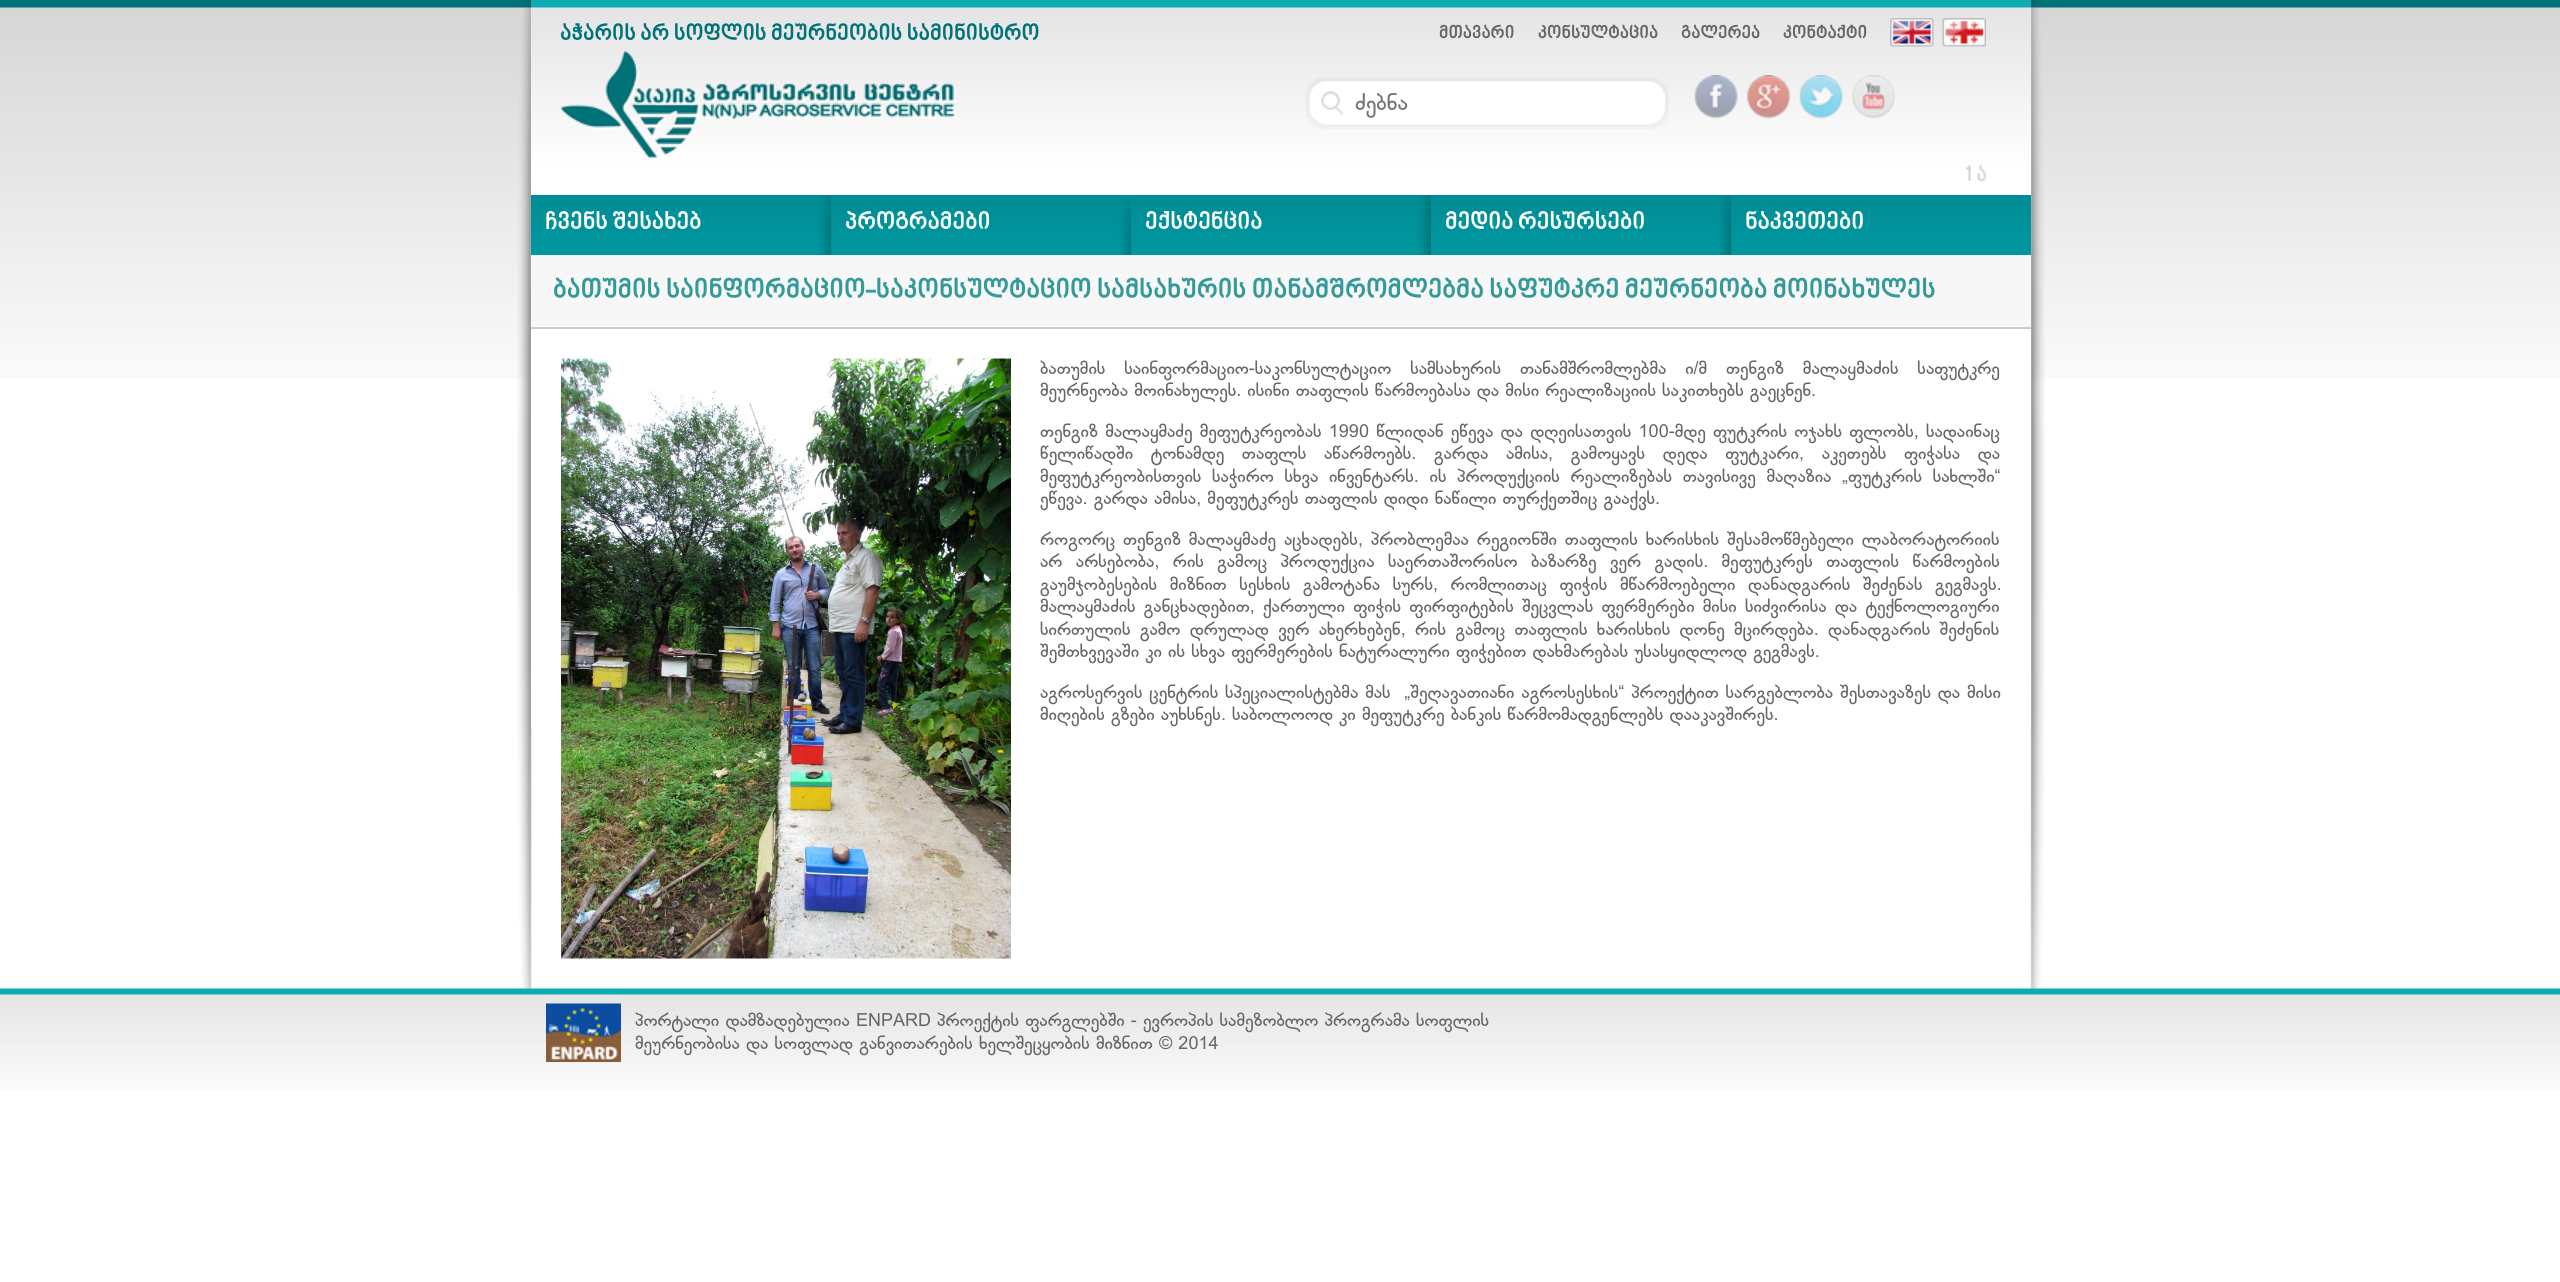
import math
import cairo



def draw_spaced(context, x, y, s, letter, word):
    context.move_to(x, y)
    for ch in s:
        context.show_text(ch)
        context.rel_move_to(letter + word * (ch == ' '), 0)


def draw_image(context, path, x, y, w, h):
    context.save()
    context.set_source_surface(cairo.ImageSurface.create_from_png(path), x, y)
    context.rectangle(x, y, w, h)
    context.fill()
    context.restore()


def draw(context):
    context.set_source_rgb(1, 1, 1)
    context.paint()
    draw_image(context, "images/1.png", 0, 0, 2560, 379)
    draw_image(context, "images/2.png", 517, 0, 1528, 1091)
    draw_image(context, "images/3.png", 531, 0, 1500, 165)
    draw_image(context, "images/4.png", 561, 51, 395, 107)
    draw_image(context, "images/5.png", 1890, 18, 44, 29)
    draw_image(context, "images/6.png", 1942, 18, 44, 29)
    draw_image(context, "images/7.png", 1305, 77, 364, 52)
    draw_image(context, "images/8.png", 1694, 75, 44, 44)
    draw_image(context, "images/9.png", 1746, 75, 45, 44)
    draw_image(context, "images/10.png", 1799, 75, 44, 44)
    draw_image(context, "images/11.png", 1852, 75, 43, 44)
    context.set_source_rgb(1, 1, 1)
    context.rectangle(531, 165, 1500, 30)
    context.fill()
    draw_image(context, "images/13.png", 531, 195, 1500, 60)
    draw_image(context, "images/14.png", 819, 195, 12, 60)
    draw_image(context, "images/15.png", 1119, 199, 12, 56)
    draw_image(context, "images/16.png", 1418, 195, 13, 60)
    draw_image(context, "images/17.png", 1719, 195, 12, 60)
    context.rectangle(531, 329, 1500, 399)
    context.fill()
    context.set_source_rgb(247 / 255, 247 / 255, 247 / 255)
    context.rectangle(531, 255, 1500, 72)
    context.fill()
    context.set_source_rgb(204 / 255, 204 / 255, 204 / 255)
    context.rectangle(531, 327, 1500, 2)
    context.fill()
    draw_image(context, "images/18.png", 561, 358, 450, 601)
    draw_image(context, "images/19.png", 0, 988, 2560, 101)
    draw_image(context, "images/20.png", 546, 1003, 75, 59)
    context.select_font_face("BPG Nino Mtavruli", cairo.FontSlant.NORMAL, cairo.FontWeight.BOLD)
    context.set_font_size(22.5)
    context.set_source_rgb(0, 115 / 255, 120 / 255)
    context.move_to(560, 41)
    context.show_text("აჭარის არ სოფლის მეურნეობის სამინისტრო")
    context.set_font_size(18)
    context.set_source_rgb(102 / 255, 102 / 255, 102 / 255)
    context.move_to(1439, 39)
    context.show_text("მთავარი")
    context.move_to(1538, 39)
    context.show_text("კონსულტაცია")
    context.move_to(1681, 39)
    context.show_text("გალერეა")
    context.move_to(1783, 39)
    context.show_text("კონტაქტი")
    context.select_font_face("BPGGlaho")
    context.set_font_size(22.5)
    context.set_source_rgb(117 / 255, 117 / 255, 117 / 255)
    context.move_to(1355, 110)
    context.show_text("ძებნა")
    context.select_font_face("BPG Nino Mtavruli", cairo.FontSlant.NORMAL, cairo.FontWeight.BOLD)
    context.set_font_size(21)
    context.set_source_rgb(153 / 255, 153 / 255, 153 / 255)
    context.move_to(1965, 182)
    context.show_text("1 ა")
    draw_image(context, "images/12.png", 1966, 165, 65, 16)
    context.set_font_size(24)
    context.set_source_rgb(1, 1, 1)
    context.move_to(545, 230)
    context.show_text("ჩვენს შესახებ")
    context.move_to(845, 230)
    context.show_text("პროგრამები")
    context.move_to(1145, 230)
    context.show_text("ექსტენცია")
    context.move_to(1445, 230)
    context.show_text("მედია რესურსები")
    context.move_to(1745, 230)
    context.show_text("ნაკვეთები")
    context.set_font_size(27)
    context.set_source_rgb(51 / 255, 153 / 255, 153 / 255)
    context.move_to(553, 299)
    context.show_text("ბათუმის საინფორმაციო-საკონსულტაციო სამსახურის თანამშრომლებმა საფუტკრე მეურნეობა მოინახულეს")
    context.select_font_face("BPGGlaho")
    context.set_font_size(18)
    context.set_source_rgb(102 / 255, 102 / 255, 102 / 255)
    draw_spaced(context, 1040, 374, "ბათუმის საინფორმაციო-საკონსულტაციო სამსახურის თანამშრომლებმა ი/მ თენგიზ მალაყმაძის საფუტკრე", 0, 12.75)
    context.move_to(1040, 396)
    context.show_text("მეურნეობა მოინახულეს. ისინი თაფლის წარმოებასა და მისი რეალიზაციის საკითხებს გაეცნენ.")
    draw_spaced(context, 1040, 437, "თენგიზ მალაყმაძე მეფუტკრეობას 1990 წლიდან ეწევა და დღეისათვის 100-მდე ფუტკრის ოჯახს ფლობს, სადაინაც", 0, 1.1)
    draw_spaced(context, 1040, 459, "წელიწადში ტონამდე თაფლს აწარმოებს. გარდა ამისა, გამოყავს დედა ფუტკარი, აკეთებს ფიჭასა და", 0, 11.5)
    draw_spaced(context, 1040, 482, "მეფუტკრეობისთვის საჭირო სხვა ინვენტარს. ის პროდუქციის რეალიზებას თავისივე მაღაზია „ფუტკრის სახლში“", 0, 4.5)
    context.move_to(1040, 504)
    context.show_text("ეწევა. გარდა ამისა, მეფუტკრეს თაფლის დიდი ნაწილი თურქეთშიც გააქვს.")
    draw_spaced(context, 1040, 545, "როგორც თენგიზ მალაყმაძე აცხადებს, პრობლემაა რეგიონში თაფლის ხარისხის შესამოწმებელი ლაბორატორიის", 0, 1.75)
    draw_spaced(context, 1040, 567, "არ არსებობა, რის გამოც პროდუქცია საერთაშორისო ბაზარზე ვერ გადის. მეფუტკრეს თაფლის წარმოების", 0, 7.25)
    draw_spaced(context, 1040, 590, "გაუმჯობესების მიზნით სესხის გამოტანა სურს, რომლითაც ფიჭის მწარმოებელი დანადგარის შეძენას გეგმავს.", 0, 6.5)
    draw_spaced(context, 1040, 612, "მალაყმაძის განცხადებით, ქართული ფიჭის ფირფიტების შეცვლას ფერმერები მისი სიძვირისა და ტექნოლოგიური", 0, 2.1)
    draw_spaced(context, 1040, 635, "სირთულის გამო დრულად ვერ ახერხებენ, რის გამოც თაფლის ხარისხის დონე მცირდება. დანადგარის შეძენის", 0, 3.25)
    context.move_to(1040, 657)
    context.show_text("შემთხვევაში კი ის სხვა ფერმერების ნატურალური ფიჭებით დახმარებას უსასყიდლოდ გეგმავს.")
    draw_spaced(context, 1040, 698, "აგროსერვის ცენტრის სპეციალისტებმა მას  „შეღავათიანი აგროსესხის“ პროექტით სარგებლობა შესთავაზეს და მისი", 0, 0.75)
    context.move_to(1040, 720)
    context.show_text("მიღების გზები აუხსნეს. საბოლოოდ კი მეფუტკრე ბანკის წარმომადგენლებს დააკავშირეს.")
    context.move_to(635, 1026)
    context.show_text("პორტალი დამზადებულია ENPARD პროექტის ფარგლებში - ევროპის სამეზობლო პროგრამა სოფლის")
    context.move_to(635, 1049)
    context.show_text("მეურნეობისა და სოფლად განვითარების ხელშეცყობის მიზნით © 2014")


surface = cairo.ImageSurface(cairo.Format.RGB24, 2560, 1282)
context = cairo.Context(surface)
options = cairo.FontOptions()
options.set_hint_metrics(cairo.HintMetrics.OFF)
options.set_hint_style(cairo.HintStyle.NONE)
context.set_font_options(options)
context.set_miter_limit(4)
draw(context)
surface.write_to_png("out.png")
